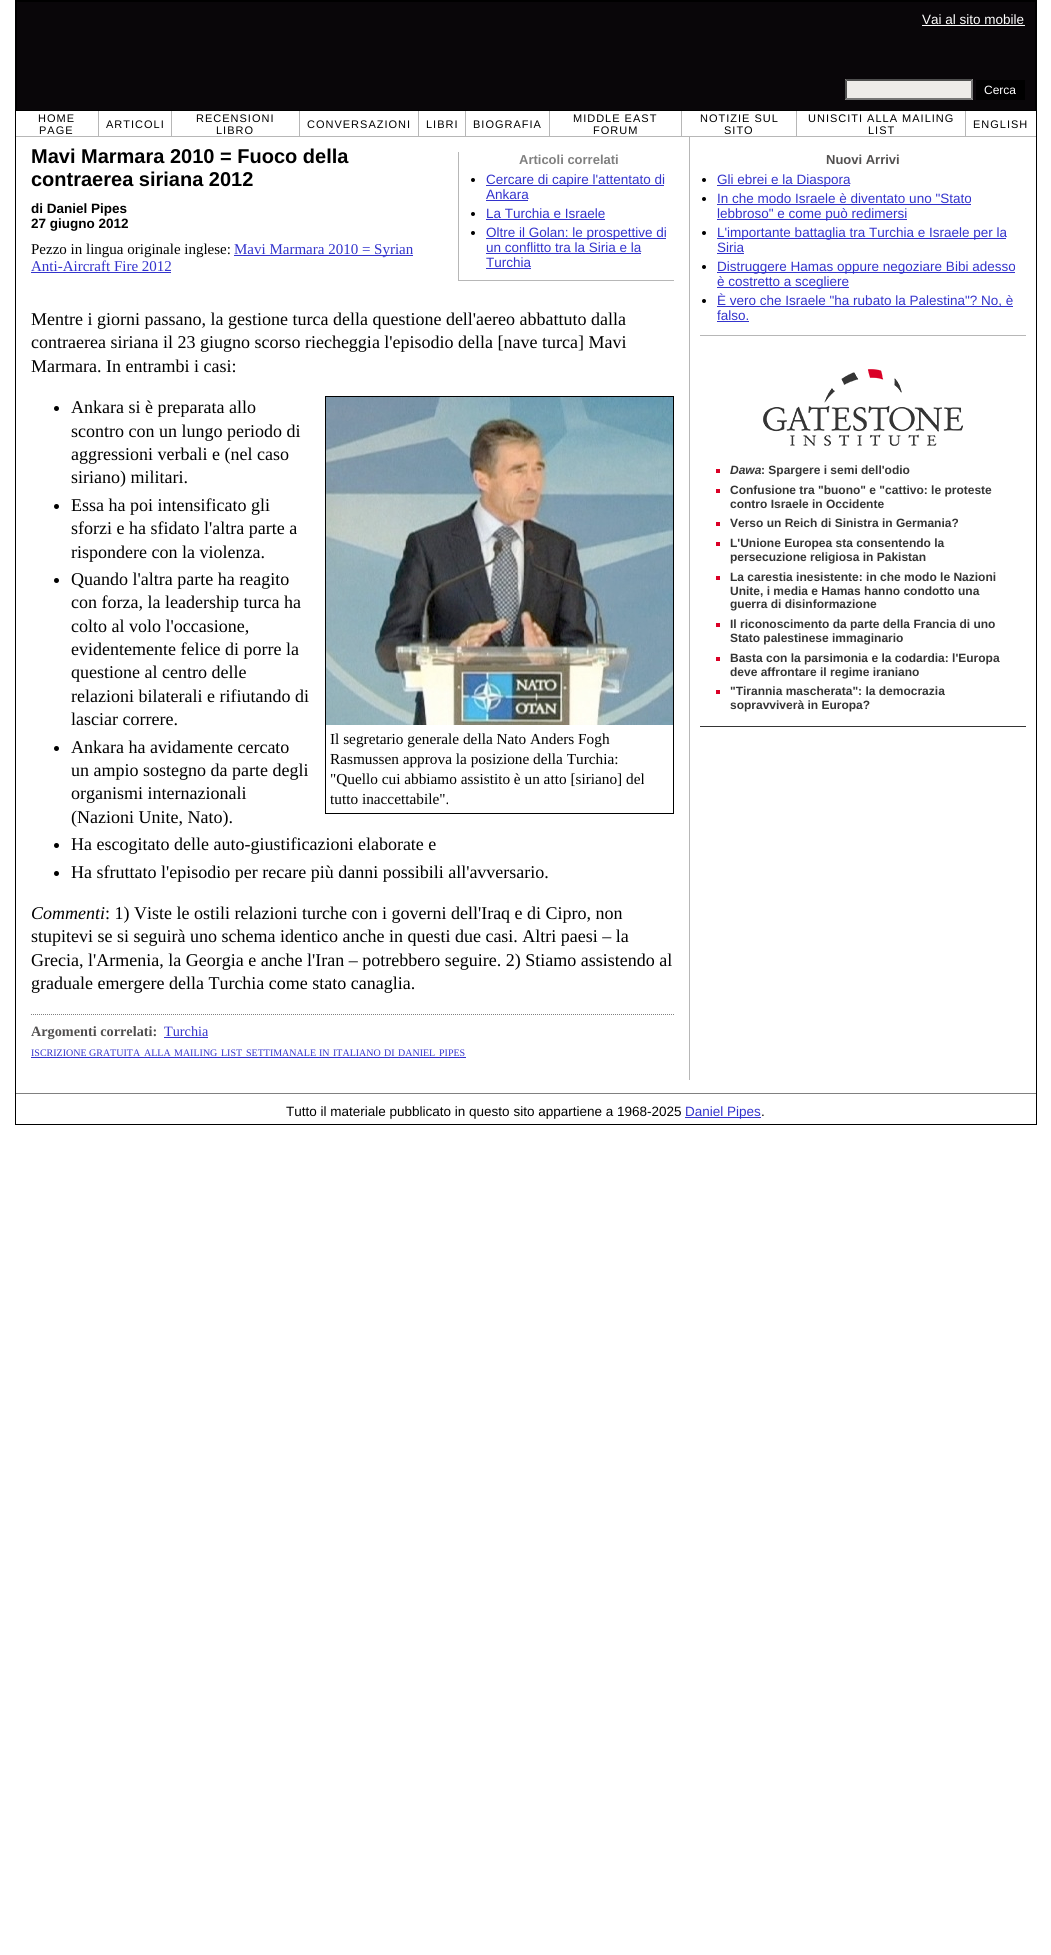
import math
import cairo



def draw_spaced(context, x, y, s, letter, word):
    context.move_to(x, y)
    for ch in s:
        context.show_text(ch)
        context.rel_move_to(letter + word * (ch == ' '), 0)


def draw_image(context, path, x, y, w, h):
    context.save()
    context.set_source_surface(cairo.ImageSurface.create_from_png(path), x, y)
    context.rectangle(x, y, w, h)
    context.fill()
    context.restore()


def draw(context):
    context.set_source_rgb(1, 1, 1)
    context.paint()
    context.rectangle(15.5, 0.5, 1021, 1124)
    context.set_source_rgb(0, 0, 0)
    context.set_line_width(1)
    context.stroke()
    context.rectangle(16.5, 1.5, 1019, 109)
    context.stroke()
    context.set_source_rgb(9 / 255, 6 / 255, 9 / 255)
    context.rectangle(17, 2, 705, 108)
    context.fill()
    context.rectangle(722, 2, 313, 108)
    context.fill()
    context.set_source_rgb(1, 1, 1)
    context.rectangle(922, 25, 103, 1)
    context.fill()
    context.set_source_rgb(238 / 255, 236 / 255, 233 / 255)
    context.rectangle(845, 79, 128, 21)
    context.fill()
    context.set_source_rgb(79 / 255, 79 / 255, 79 / 255)
    context.new_path()
    context.move_to(845, 79)
    context.line_to(973, 79)
    context.line_to(971, 81)
    context.line_to(847, 81)
    context.close_path()
    context.fill()
    context.set_source_rgb(118 / 255, 118 / 255, 118 / 255)
    context.new_path()
    context.move_to(973, 79)
    context.line_to(973, 100)
    context.line_to(971, 98)
    context.line_to(971, 81)
    context.close_path()
    context.fill()
    context.new_path()
    context.move_to(973, 100)
    context.line_to(845, 100)
    context.line_to(847, 98)
    context.line_to(971, 98)
    context.close_path()
    context.fill()
    context.set_source_rgb(79 / 255, 79 / 255, 79 / 255)
    context.new_path()
    context.move_to(845, 100)
    context.line_to(845, 79)
    context.line_to(847, 81)
    context.line_to(847, 98)
    context.close_path()
    context.fill()
    context.set_source_rgb(0, 0, 0)
    context.rectangle(976, 80, 49, 20)
    context.fill()
    context.set_source_rgb(183 / 255, 183 / 255, 183 / 255)
    context.rectangle(98, 111, 1, 26)
    context.fill()
    context.rectangle(16, 136, 83, 1)
    context.fill()
    context.rectangle(171, 111, 1, 26)
    context.fill()
    context.rectangle(99, 136, 73, 1)
    context.fill()
    context.rectangle(299, 111, 1, 26)
    context.fill()
    context.rectangle(172, 136, 128, 1)
    context.fill()
    context.rectangle(418, 111, 1, 26)
    context.fill()
    context.rectangle(300, 136, 119, 1)
    context.fill()
    context.rectangle(465, 111, 1, 26)
    context.fill()
    context.rectangle(419, 136, 47, 1)
    context.fill()
    context.rectangle(549, 111, 1, 26)
    context.fill()
    context.rectangle(466, 136, 84, 1)
    context.fill()
    context.rectangle(681, 111, 1, 26)
    context.fill()
    context.rectangle(550, 136, 132, 1)
    context.fill()
    context.rectangle(796, 111, 1, 26)
    context.fill()
    context.rectangle(682, 136, 115, 1)
    context.fill()
    context.rectangle(965, 111, 1, 26)
    context.fill()
    context.rectangle(797, 136, 239, 1)
    context.fill()
    context.set_source_rgb(51 / 255, 51 / 255, 204 / 255)
    context.rectangle(234, 255, 179, 1)
    context.fill()
    context.rectangle(31, 272, 140, 1)
    context.fill()
    context.set_source_rgb(183 / 255, 183 / 255, 183 / 255)
    context.rectangle(458, 280, 216, 1)
    context.fill()
    context.rectangle(458, 152, 1, 129)
    context.fill()
    context.set_source_rgb(0, 0, 0)
    context.arc(473, 180, 2, 0, 2 * math.pi)
    context.fill()
    context.set_source_rgb(51 / 255, 51 / 255, 204 / 255)
    context.rectangle(486, 185, 178, 1)
    context.fill()
    context.rectangle(486, 200, 42, 1)
    context.fill()
    context.set_source_rgb(0, 0, 0)
    context.arc(473, 214, 2, 0, 2 * math.pi)
    context.fill()
    context.set_source_rgb(51 / 255, 51 / 255, 204 / 255)
    context.rectangle(486, 219, 119, 1)
    context.fill()
    context.set_source_rgb(0, 0, 0)
    context.arc(473, 233, 2, 0, 2 * math.pi)
    context.fill()
    context.set_source_rgb(51 / 255, 51 / 255, 204 / 255)
    context.rectangle(486, 238, 180, 1)
    context.fill()
    context.rectangle(486, 253, 155, 1)
    context.fill()
    context.rectangle(486, 268, 45, 1)
    context.fill()
    context.set_source_rgb(0, 0, 0)
    context.arc(56.5, 408.5, 2.5, 0, 2 * math.pi)
    context.fill()
    context.arc(56.5, 506.5, 2.5, 0, 2 * math.pi)
    context.fill()
    context.arc(56.5, 580.5, 2.5, 0, 2 * math.pi)
    context.fill()
    context.arc(56.5, 748.5, 2.5, 0, 2 * math.pi)
    context.fill()
    context.arc(56.5, 845.5, 2.5, 0, 2 * math.pi)
    context.fill()
    context.arc(56.5, 873.5, 2.5, 0, 2 * math.pi)
    context.fill()
    context.rectangle(325.5, 396.5, 348, 417)
    context.stroke()
    draw_image(context, "images/1.png", 326, 397, 347, 328)
    context.new_path()
    context.move_to(31, 1014.5)
    context.line_to(674, 1014.5)
    context.set_source_rgb(128 / 255, 128 / 255, 128 / 255)
    context.set_dash([1, 1])
    context.stroke()
    context.set_source_rgb(51 / 255, 51 / 255, 204 / 255)
    context.rectangle(164, 1037, 44, 1)
    context.fill()
    context.rectangle(31, 1057, 435, 1)
    context.fill()
    context.set_source_rgb(183 / 255, 183 / 255, 183 / 255)
    context.rectangle(689, 137, 1, 943)
    context.fill()
    context.rectangle(700, 335, 326, 1)
    context.fill()
    context.set_source_rgb(0, 0, 0)
    context.arc(704, 180, 2, 0, 2 * math.pi)
    context.fill()
    context.set_source_rgb(51 / 255, 51 / 255, 204 / 255)
    context.rectangle(717, 185, 133, 1)
    context.fill()
    context.set_source_rgb(0, 0, 0)
    context.arc(704, 199, 2, 0, 2 * math.pi)
    context.fill()
    context.set_source_rgb(51 / 255, 51 / 255, 204 / 255)
    context.rectangle(717, 204, 254, 1)
    context.fill()
    context.rectangle(717, 219, 190, 1)
    context.fill()
    context.set_source_rgb(0, 0, 0)
    context.arc(704, 233, 2, 0, 2 * math.pi)
    context.fill()
    context.set_source_rgb(51 / 255, 51 / 255, 204 / 255)
    context.rectangle(717, 238, 289, 1)
    context.fill()
    context.rectangle(717, 253, 27, 1)
    context.fill()
    context.set_source_rgb(0, 0, 0)
    context.arc(704, 267, 2, 0, 2 * math.pi)
    context.fill()
    context.set_source_rgb(51 / 255, 51 / 255, 204 / 255)
    context.rectangle(717, 272, 298, 1)
    context.fill()
    context.rectangle(717, 287, 132, 1)
    context.fill()
    context.set_source_rgb(0, 0, 0)
    context.arc(704, 301, 2, 0, 2 * math.pi)
    context.fill()
    context.set_source_rgb(51 / 255, 51 / 255, 204 / 255)
    context.rectangle(717, 306, 296, 1)
    context.fill()
    context.rectangle(717, 321, 32, 1)
    context.fill()
    context.set_source_rgb(53 / 255, 53 / 255, 53 / 255)
    context.rectangle(700, 726, 326, 1)
    context.fill()
    draw_image(context, "images/2.png", 763, 369, 200, 77)
    context.set_source_rgb(218 / 255, 0, 38 / 255)
    context.rectangle(716, 469, 4, 4)
    context.fill()
    context.rectangle(716, 489, 4, 4)
    context.fill()
    context.rectangle(716, 522, 4, 4)
    context.fill()
    context.rectangle(716, 542, 4, 4)
    context.fill()
    context.rectangle(716, 576, 4, 4)
    context.fill()
    context.rectangle(716, 623, 4, 4)
    context.fill()
    context.rectangle(716, 657, 4, 4)
    context.fill()
    context.rectangle(716, 690, 4, 4)
    context.fill()
    context.set_source_rgb(128 / 255, 128 / 255, 128 / 255)
    context.rectangle(16, 1093, 1020, 1)
    context.fill()
    context.set_source_rgb(51 / 255, 51 / 255, 204 / 255)
    context.rectangle(685, 1117, 76, 1)
    context.fill()
    context.select_font_face("Liberation Sans")
    context.set_font_size(13.5)
    context.set_source_rgb(1, 1, 1)
    context.move_to(922, 24)
    context.show_text("Vai al sito mobile")
    context.set_font_size(12)
    context.move_to(984, 94)
    context.show_text("Cerca")
    context.set_font_size(11)
    context.set_source_rgb(0, 0, 0)
    draw_spaced(context, 38, 122, "HOME", 1, 0)
    draw_spaced(context, 39, 134, "PAGE", 1, 0)
    draw_spaced(context, 106, 128, "ARTICOLI", 1, 0)
    draw_spaced(context, 196, 122, "RECENSIONI", 1, 0)
    draw_spaced(context, 216, 134, "LIBRO", 1, 0)
    draw_spaced(context, 307, 128, "CONVERSAZIONI", 1, 0)
    draw_spaced(context, 426, 128, "LIBRI", 1, 0)
    draw_spaced(context, 473, 128, "BIOGRAFIA", 1, 0)
    draw_spaced(context, 573, 122, "MIDDLE EAST", 1, 0)
    draw_spaced(context, 593, 134, "FORUM", 1, 0)
    draw_spaced(context, 700, 122, "NOTIZIE SUL", 1, 0)
    draw_spaced(context, 724, 134, "SITO", 1, 0)
    draw_spaced(context, 808, 122, "UNISCITI ALLA MAILING", 1, 0)
    draw_spaced(context, 868, 134, "LIST", 1, 0)
    draw_spaced(context, 973, 128, "ENGLISH", 1, 0)
    context.select_font_face("Liberation Sans", cairo.FontSlant.NORMAL, cairo.FontWeight.BOLD)
    context.set_font_size(20)
    context.move_to(31, 163)
    context.show_text("Mavi Marmara 2010 = Fuoco della")
    context.move_to(31, 186)
    context.show_text("contraerea siriana 2012")
    context.set_font_size(13.5)
    context.move_to(31, 213)
    context.show_text("di Daniel Pipes")
    context.move_to(31, 228)
    context.show_text("27 giugno 2012")
    context.select_font_face("Liberation Serif")
    context.set_font_size(15)
    context.move_to(31, 254)
    context.show_text("Pezzo in lingua originale inglese:")
    context.set_source_rgb(51 / 255, 51 / 255, 204 / 255)
    context.move_to(234, 254)
    context.show_text("Mavi Marmara 2010 = Syrian")
    context.move_to(31, 271)
    context.show_text("Anti-Aircraft Fire 2012")
    context.select_font_face("Liberation Sans", cairo.FontSlant.NORMAL, cairo.FontWeight.BOLD)
    context.set_font_size(13)
    context.set_source_rgb(128 / 255, 128 / 255, 128 / 255)
    context.move_to(519, 164)
    context.show_text("Articoli correlati")
    context.select_font_face("Liberation Sans")
    context.set_font_size(13.5)
    context.set_source_rgb(51 / 255, 51 / 255, 204 / 255)
    context.move_to(486, 184)
    context.show_text("Cercare di capire l'attentato di")
    context.move_to(486, 199)
    context.show_text("Ankara")
    context.move_to(486, 218)
    context.show_text("La Turchia e Israele")
    context.move_to(486, 237)
    context.show_text("Oltre il Golan: le prospettive di")
    context.move_to(486, 252)
    context.show_text("un conflitto tra la Siria e la")
    context.move_to(486, 267)
    context.show_text("Turchia")
    context.select_font_face("Liberation Serif")
    context.set_font_size(18)
    context.set_source_rgb(0, 0, 0)
    context.move_to(31, 325)
    context.show_text("Mentre i giorni passano, la gestione turca della questione dell'aereo abbattuto dalla")
    context.move_to(31, 348)
    context.show_text("contraerea siriana il 23 giugno scorso riecheggia l'episodio della [nave turca] Mavi")
    context.move_to(31, 372)
    context.show_text("Marmara. In entrambi i casi:")
    context.move_to(71, 413)
    context.show_text("Ankara si è preparata allo")
    context.move_to(71, 437)
    context.show_text("scontro con un lungo periodo di")
    context.move_to(71, 460)
    context.show_text("aggressioni verbali e (nel caso")
    context.move_to(71, 483)
    context.show_text("siriano) militari.")
    context.move_to(71, 511)
    context.show_text("Essa ha poi intensificato gli")
    context.move_to(71, 534)
    context.show_text("sforzi e ha sfidato l'altra parte a")
    context.move_to(71, 558)
    context.show_text("rispondere con la violenza.")
    context.move_to(71, 585)
    context.show_text("Quando l'altra parte ha reagito")
    context.move_to(71, 608)
    context.show_text("con forza, la leadership turca ha")
    context.move_to(71, 632)
    context.show_text("colto al volo l'occasione,")
    context.move_to(71, 655)
    context.show_text("evidentemente felice di porre la")
    context.move_to(71, 678)
    context.show_text("questione al centro delle")
    context.move_to(71, 702)
    context.show_text("relazioni bilaterali e rifiutando di")
    context.move_to(71, 725)
    context.show_text("lasciar correre.")
    context.move_to(71, 753)
    context.show_text("Ankara ha avidamente cercato")
    context.move_to(71, 776)
    context.show_text("un ampio sostegno da parte degli")
    context.move_to(71, 799)
    context.show_text("organismi internazionali")
    context.move_to(71, 823)
    context.show_text("(Nazioni Unite, Nato).")
    context.move_to(71, 850)
    context.show_text("Ha escogitato delle auto-giustificazioni elaborate e")
    context.move_to(71, 878)
    context.show_text("Ha sfruttato l'episodio per recare più danni possibili all'avversario.")
    context.set_font_size(15.3)
    context.move_to(330, 744)
    context.show_text("Il segretario generale della Nato Anders Fogh")
    context.move_to(330, 764)
    context.show_text("Rasmussen approva la posizione della Turchia:")
    context.move_to(330, 784)
    context.show_text("\"Quello cui abbiamo assistito è un atto [siriano] del")
    context.move_to(330, 804)
    context.show_text("tutto inaccettabile\".")
    context.select_font_face("Liberation Serif", cairo.FontSlant.ITALIC)
    context.set_font_size(18)
    context.move_to(31, 919)
    context.show_text("Commenti")
    context.select_font_face("Liberation Serif")
    context.move_to(105, 919)
    context.show_text(": 1) Viste le ostili relazioni turche con i governi dell'Iraq e di Cipro, non")
    context.move_to(31, 942)
    context.show_text("stupitevi se si seguirà uno schema identico anche in questi due casi. Altri paesi – la")
    context.move_to(31, 966)
    context.show_text("Grecia, l'Armenia, la Georgia e anche l'Iran – potrebbero seguire. 2) Stiamo assistendo al")
    context.move_to(31, 989)
    context.show_text("graduale emergere della Turchia come stato canaglia.")
    context.select_font_face("Liberation Serif", cairo.FontSlant.NORMAL, cairo.FontWeight.BOLD)
    context.set_font_size(14.25)
    context.set_source_rgb(82 / 255, 80 / 255, 80 / 255)
    context.move_to(31, 1036)
    context.show_text("Argomenti correlati:")
    context.select_font_face("Liberation Serif")
    context.set_source_rgb(51 / 255, 51 / 255, 204 / 255)
    context.move_to(164, 1036)
    context.show_text("Turchia")
    context.set_font_size(10)
    context.move_to(31, 1056)
    context.show_text("ISCRIZIONE")
    context.move_to(89, 1056)
    context.show_text("GRATUITA")
    context.move_to(144, 1056)
    context.show_text("ALLA")
    context.move_to(174, 1056)
    context.show_text("MAILING")
    context.move_to(221, 1056)
    context.show_text("LIST")
    context.move_to(246, 1056)
    context.show_text("SETTIMANALE")
    context.move_to(319, 1056)
    context.show_text("IN")
    context.move_to(333, 1056)
    context.show_text("ITALIANO")
    context.move_to(384, 1056)
    context.show_text("DI")
    context.move_to(398, 1056)
    context.show_text("DANIEL")
    context.move_to(439, 1056)
    context.show_text("PIPES")
    context.select_font_face("Liberation Sans", cairo.FontSlant.NORMAL, cairo.FontWeight.BOLD)
    context.set_font_size(13)
    context.set_source_rgb(82 / 255, 80 / 255, 80 / 255)
    context.move_to(826, 164)
    context.show_text("Nuovi Arrivi")
    context.select_font_face("Liberation Sans")
    context.set_font_size(13.5)
    context.set_source_rgb(51 / 255, 51 / 255, 204 / 255)
    context.move_to(717, 184)
    context.show_text("Gli ebrei e la Diaspora")
    context.move_to(717, 203)
    context.show_text("In che modo Israele è diventato uno \"Stato")
    context.move_to(717, 218)
    context.show_text("lebbroso\" e come può redimersi")
    context.move_to(717, 237)
    context.show_text("L'importante battaglia tra Turchia e Israele per la")
    context.move_to(717, 252)
    context.show_text("Siria")
    context.move_to(717, 271)
    context.show_text("Distruggere Hamas oppure negoziare Bibi adesso")
    context.move_to(717, 286)
    context.show_text("è costretto a scegliere")
    context.move_to(717, 305)
    context.show_text("È vero che Israele \"ha rubato la Palestina\"? No, è")
    context.move_to(717, 320)
    context.show_text("falso.")
    context.select_font_face("Liberation Sans", cairo.FontSlant.ITALIC, cairo.FontWeight.BOLD)
    context.set_font_size(12)
    context.set_source_rgb(53 / 255, 53 / 255, 53 / 255)
    context.move_to(730, 474)
    context.show_text("Dawa")
    context.select_font_face("Liberation Sans", cairo.FontSlant.NORMAL, cairo.FontWeight.BOLD)
    context.move_to(761, 474)
    context.show_text(": Spargere i semi dell'odio")
    context.move_to(730, 494)
    context.show_text("Confusione tra \"buono\" e \"cattivo: le proteste")
    context.move_to(730, 508)
    context.show_text("contro Israele in Occidente")
    context.move_to(730, 527)
    context.show_text("Verso un Reich di Sinistra in Germania?")
    context.move_to(730, 547)
    context.show_text("L'Unione Europea sta consentendo la")
    context.move_to(730, 561)
    context.show_text("persecuzione religiosa in Pakistan")
    context.move_to(730, 581)
    context.show_text("La carestia inesistente: in che modo le Nazioni")
    context.move_to(730, 595)
    context.show_text("Unite, i media e Hamas hanno condotto una")
    context.move_to(730, 608)
    context.show_text("guerra di disinformazione")
    context.move_to(730, 628)
    context.show_text("Il riconoscimento da parte della Francia di uno")
    context.move_to(730, 642)
    context.show_text("Stato palestinese immaginario")
    context.move_to(730, 662)
    context.show_text("Basta con la parsimonia e la codardia: l'Europa")
    context.move_to(730, 676)
    context.show_text("deve affrontare il regime iraniano")
    context.move_to(730, 695)
    context.show_text("\"Tirannia mascherata\": la democrazia")
    context.move_to(730, 709)
    context.show_text("sopravviverà in Europa?")
    context.select_font_face("Liberation Sans")
    context.set_font_size(13.5)
    context.set_source_rgb(0, 0, 0)
    context.move_to(286, 1116)
    context.show_text("Tutto il materiale pubblicato in questo sito appartiene a 1968-2025")
    context.set_source_rgb(51 / 255, 51 / 255, 204 / 255)
    context.move_to(685, 1116)
    context.show_text("Daniel Pipes")
    context.set_source_rgb(0, 0, 0)
    context.move_to(761, 1116)
    context.show_text(".")


surface = cairo.ImageSurface(cairo.Format.RGB24, 1051, 1955)
context = cairo.Context(surface)
options = cairo.FontOptions()
options.set_hint_metrics(cairo.HintMetrics.OFF)
options.set_hint_style(cairo.HintStyle.NONE)
context.set_font_options(options)
context.set_miter_limit(4)
draw(context)
surface.write_to_png("out.png")
